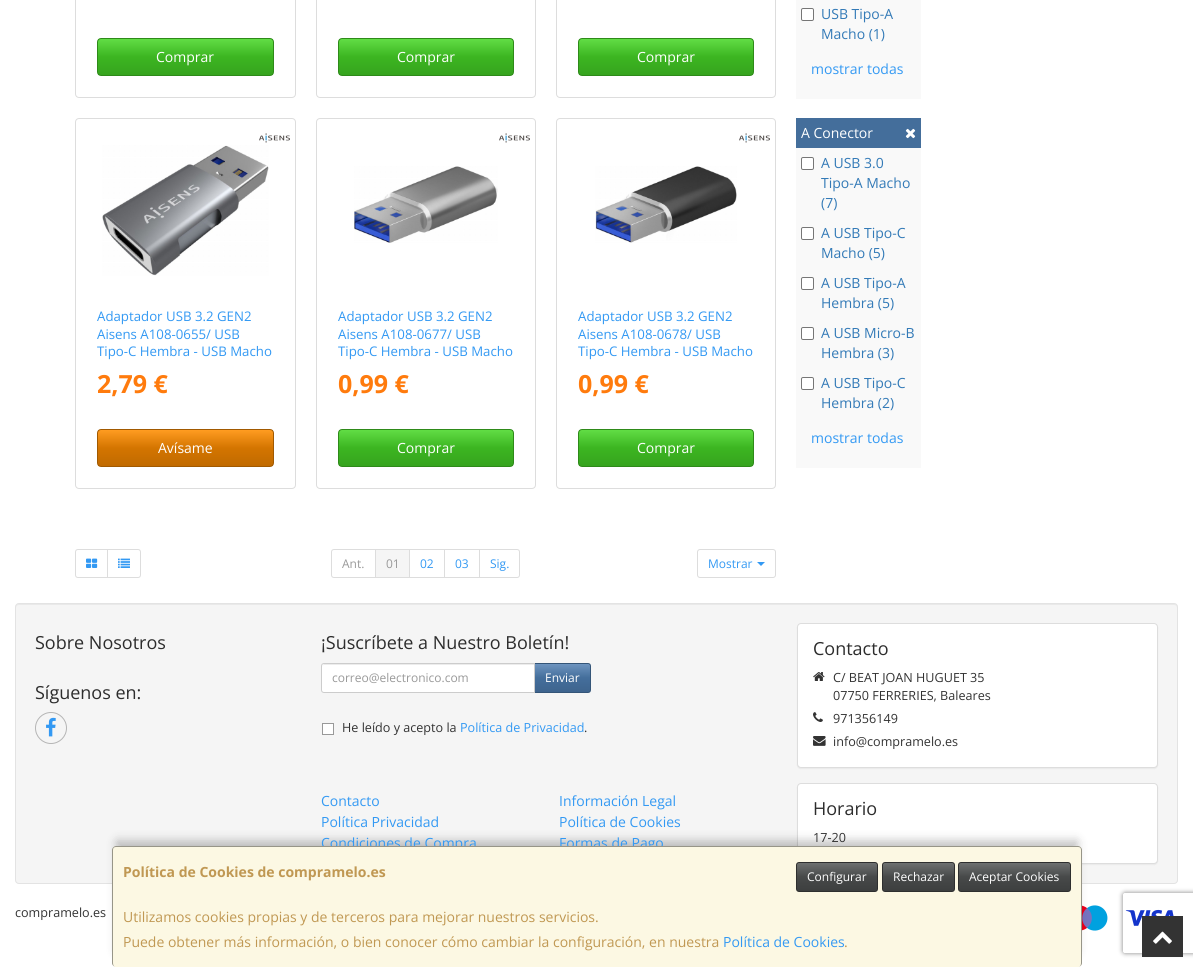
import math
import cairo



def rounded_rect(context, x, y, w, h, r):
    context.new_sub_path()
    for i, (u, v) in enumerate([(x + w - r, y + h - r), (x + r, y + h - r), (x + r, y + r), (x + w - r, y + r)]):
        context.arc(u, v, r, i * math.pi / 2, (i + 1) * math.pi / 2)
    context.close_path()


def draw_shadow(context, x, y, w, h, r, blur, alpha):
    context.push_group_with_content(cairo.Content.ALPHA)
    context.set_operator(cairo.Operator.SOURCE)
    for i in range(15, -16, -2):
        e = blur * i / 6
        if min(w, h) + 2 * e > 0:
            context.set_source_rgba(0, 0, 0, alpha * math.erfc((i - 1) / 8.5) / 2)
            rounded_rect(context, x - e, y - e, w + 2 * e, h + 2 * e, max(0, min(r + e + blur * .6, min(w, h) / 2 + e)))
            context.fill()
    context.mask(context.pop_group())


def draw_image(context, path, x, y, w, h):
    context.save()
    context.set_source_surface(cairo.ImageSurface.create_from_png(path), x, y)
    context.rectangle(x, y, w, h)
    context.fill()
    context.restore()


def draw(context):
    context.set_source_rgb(1, 1, 1)
    context.paint()
    rounded_rect(context, 75.5, -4.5, 220, 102, 3.5)
    context.set_source_rgb(221 / 255, 221 / 255, 221 / 255)
    context.set_line_width(1)
    context.stroke()
    context.save()
    rounded_rect(context, 97, 38, 177, 38, 4)
    context.clip()
    gradient = cairo.LinearGradient(186, 39, 186, 75)
    gradient.add_color_stop_rgba(0, 97 / 255, 221 / 255, 69 / 255, 1)
    gradient.add_color_stop_rgba(0.5, 60 / 255, 181 / 255, 33 / 255, 1)
    gradient.add_color_stop_rgba(1, 54 / 255, 164 / 255, 30 / 255, 1)
    context.set_source(gradient)
    context.rectangle(98, 39, 175, 36)
    context.fill()
    context.restore()
    rounded_rect(context, 97.5, 38.5, 176, 37, 3.5)
    context.set_source_rgb(46 / 255, 138 / 255, 25 / 255)
    context.stroke()
    rounded_rect(context, 316.5, -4.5, 219, 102, 3.5)
    context.set_source_rgb(221 / 255, 221 / 255, 221 / 255)
    context.stroke()
    context.save()
    rounded_rect(context, 338, 38, 176, 38, 4)
    context.clip()
    gradient = cairo.LinearGradient(426, 39, 426, 75)
    gradient.add_color_stop_rgba(0, 97 / 255, 221 / 255, 69 / 255, 1)
    gradient.add_color_stop_rgba(0.5, 60 / 255, 181 / 255, 33 / 255, 1)
    gradient.add_color_stop_rgba(1, 54 / 255, 164 / 255, 30 / 255, 1)
    context.set_source(gradient)
    context.rectangle(339, 39, 174, 36)
    context.fill()
    context.restore()
    rounded_rect(context, 338.5, 38.5, 175, 37, 3.5)
    context.set_source_rgb(46 / 255, 138 / 255, 25 / 255)
    context.stroke()
    rounded_rect(context, 556.5, -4.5, 219, 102, 3.5)
    context.set_source_rgb(221 / 255, 221 / 255, 221 / 255)
    context.stroke()
    context.save()
    rounded_rect(context, 578, 38, 176, 38, 4)
    context.clip()
    gradient = cairo.LinearGradient(666, 39, 666, 75)
    gradient.add_color_stop_rgba(0, 97 / 255, 221 / 255, 69 / 255, 1)
    gradient.add_color_stop_rgba(0.5, 60 / 255, 181 / 255, 33 / 255, 1)
    gradient.add_color_stop_rgba(1, 54 / 255, 164 / 255, 30 / 255, 1)
    context.set_source(gradient)
    context.rectangle(579, 39, 174, 36)
    context.fill()
    context.restore()
    rounded_rect(context, 578.5, 38.5, 175, 37, 3.5)
    context.set_source_rgb(46 / 255, 138 / 255, 25 / 255)
    context.stroke()
    rounded_rect(context, 75.5, 118.5, 220, 370, 3.5)
    context.set_source_rgb(221 / 255, 221 / 255, 221 / 255)
    context.stroke()
    draw_image(context, "images/1.png", 259, 133, 31, 10)
    draw_image(context, "images/2.png", 102, 145, 167, 131)
    context.save()
    rounded_rect(context, 97, 429, 177, 38, 4)
    context.clip()
    gradient = cairo.LinearGradient(186, 430, 186, 466)
    gradient.add_color_stop_rgba(0, 1, 156 / 255, 33 / 255, 1)
    gradient.add_color_stop_rgba(0.5, 212 / 255, 117 / 255, 0, 1)
    gradient.add_color_stop_rgba(1, 192 / 255, 106 / 255, 0, 1)
    context.set_source(gradient)
    context.rectangle(98, 430, 175, 36)
    context.fill()
    context.restore()
    rounded_rect(context, 97.5, 429.5, 176, 37, 3.5)
    context.set_source_rgb(161 / 255, 89 / 255, 0)
    context.stroke()
    rounded_rect(context, 316.5, 118.5, 219, 370, 3.5)
    context.set_source_rgb(221 / 255, 221 / 255, 221 / 255)
    context.stroke()
    draw_image(context, "images/1.png", 499, 133, 31, 10)
    draw_image(context, "images/3.png", 354, 166, 144, 77)
    context.save()
    rounded_rect(context, 338, 429, 176, 38, 4)
    context.clip()
    gradient = cairo.LinearGradient(426, 430, 426, 466)
    gradient.add_color_stop_rgba(0, 97 / 255, 221 / 255, 69 / 255, 1)
    gradient.add_color_stop_rgba(0.5, 60 / 255, 181 / 255, 33 / 255, 1)
    gradient.add_color_stop_rgba(1, 54 / 255, 164 / 255, 30 / 255, 1)
    context.set_source(gradient)
    context.rectangle(339, 430, 174, 36)
    context.fill()
    context.restore()
    rounded_rect(context, 338.5, 429.5, 175, 37, 3.5)
    context.set_source_rgb(46 / 255, 138 / 255, 25 / 255)
    context.stroke()
    rounded_rect(context, 556.5, 118.5, 219, 370, 3.5)
    context.set_source_rgb(221 / 255, 221 / 255, 221 / 255)
    context.stroke()
    draw_image(context, "images/1.png", 739, 133, 31, 10)
    draw_image(context, "images/4.png", 595, 166, 142, 77)
    context.save()
    rounded_rect(context, 578, 429, 176, 38, 4)
    context.clip()
    gradient = cairo.LinearGradient(666, 430, 666, 466)
    gradient.add_color_stop_rgba(0, 97 / 255, 221 / 255, 69 / 255, 1)
    gradient.add_color_stop_rgba(0.5, 60 / 255, 181 / 255, 33 / 255, 1)
    gradient.add_color_stop_rgba(1, 54 / 255, 164 / 255, 30 / 255, 1)
    context.set_source(gradient)
    context.rectangle(579, 430, 174, 36)
    context.fill()
    context.restore()
    rounded_rect(context, 578.5, 429.5, 175, 37, 3.5)
    context.set_source_rgb(46 / 255, 138 / 255, 25 / 255)
    context.stroke()
    context.new_path()
    context.move_to(78, 549.5)
    context.line_to(107.5, 549.5)
    context.line_to(107.5, 577.5)
    context.line_to(78, 577.5)
    context.curve_to(76.5, 577.5, 75.5, 576.5, 75.5, 575)
    context.line_to(75.5, 552)
    context.curve_to(75.5, 550.5, 76.5, 549.5, 78, 549.5)
    context.close_path()
    context.set_source_rgb(221 / 255, 221 / 255, 221 / 255)
    context.stroke()
    draw_image(context, "images/5.png", 86, 558, 12, 10)
    context.set_source_rgb(1, 1, 1)
    context.new_path()
    context.move_to(107.5, 549.5)
    context.line_to(138, 549.5)
    context.curve_to(139.5, 549.5, 140.5, 550.5, 140.5, 552)
    context.line_to(140.5, 575)
    context.curve_to(140.5, 576.5, 139.5, 577.5, 138, 577.5)
    context.line_to(107.5, 577.5)
    context.close_path()
    context.fill_preserve()
    context.set_source_rgb(221 / 255, 221 / 255, 221 / 255)
    context.stroke()
    draw_image(context, "images/6.png", 118, 558, 12, 10)
    context.new_path()
    context.move_to(334, 549.5)
    context.line_to(375.5, 549.5)
    context.line_to(375.5, 577.5)
    context.line_to(334, 577.5)
    context.curve_to(332.5, 577.5, 331.5, 576.5, 331.5, 575)
    context.line_to(331.5, 552)
    context.curve_to(331.5, 550.5, 332.5, 549.5, 334, 549.5)
    context.close_path()
    context.stroke()
    context.rectangle(409.5, 549.5, 35, 28)
    context.stroke()
    context.set_source_rgb(245 / 255, 245 / 255, 245 / 255)
    context.rectangle(375.5, 549.5, 34, 28)
    context.fill_preserve()
    context.set_source_rgb(221 / 255, 221 / 255, 221 / 255)
    context.stroke()
    context.rectangle(444.5, 549.5, 35, 28)
    context.stroke()
    context.set_source_rgb(1, 1, 1)
    context.new_path()
    context.move_to(479.5, 549.5)
    context.line_to(517, 549.5)
    context.curve_to(518.5, 549.5, 519.5, 550.5, 519.5, 552)
    context.line_to(519.5, 575)
    context.curve_to(519.5, 576.5, 518.5, 577.5, 517, 577.5)
    context.line_to(479.5, 577.5)
    context.close_path()
    context.fill_preserve()
    context.set_source_rgb(221 / 255, 221 / 255, 221 / 255)
    context.stroke()
    rounded_rect(context, 697.5, 549.5, 78, 28, 2.5)
    context.stroke()
    context.set_source_rgb(51 / 255, 153 / 255, 243 / 255)
    context.new_path()
    context.move_to(757, 562)
    context.line_to(765, 562)
    context.line_to(761, 566)
    context.close_path()
    context.fill()
    context.set_source_rgb(249 / 255, 249 / 255, 249 / 255)
    context.rectangle(796, 0, 125, 99)
    context.fill()
    context.set_source_rgb(1, 1, 1)
    rounded_rect(context, 801.5, 8.5, 12, 12, 1.5)
    context.fill_preserve()
    context.set_source_rgb(118 / 255, 118 / 255, 118 / 255)
    context.stroke()
    context.set_source_rgb(68 / 255, 110 / 255, 155 / 255)
    context.rectangle(796, 118, 125, 30)
    context.fill()
    draw_image(context, "images/7.png", 905, 128, 11, 11)
    context.set_source_rgb(249 / 255, 249 / 255, 249 / 255)
    context.rectangle(796, 148, 125, 320)
    context.fill()
    context.set_source_rgb(1, 1, 1)
    rounded_rect(context, 801.5, 157.5, 12, 12, 1.5)
    context.fill_preserve()
    context.set_source_rgb(118 / 255, 118 / 255, 118 / 255)
    context.stroke()
    context.set_source_rgb(1, 1, 1)
    rounded_rect(context, 801.5, 227.5, 12, 12, 1.5)
    context.fill_preserve()
    context.set_source_rgb(118 / 255, 118 / 255, 118 / 255)
    context.stroke()
    context.set_source_rgb(1, 1, 1)
    rounded_rect(context, 801.5, 277.5, 12, 12, 1.5)
    context.fill_preserve()
    context.set_source_rgb(118 / 255, 118 / 255, 118 / 255)
    context.stroke()
    context.set_source_rgb(1, 1, 1)
    rounded_rect(context, 801.5, 327.5, 12, 12, 1.5)
    context.fill_preserve()
    context.set_source_rgb(118 / 255, 118 / 255, 118 / 255)
    context.stroke()
    context.set_source_rgb(1, 1, 1)
    rounded_rect(context, 801.5, 377.5, 12, 12, 1.5)
    context.fill_preserve()
    context.set_source_rgb(118 / 255, 118 / 255, 118 / 255)
    context.stroke()
    context.set_source_rgb(245 / 255, 245 / 255, 245 / 255)
    rounded_rect(context, 15, 603, 1163, 281, 4)
    context.fill()
    context.set_source_rgb(233 / 255, 233 / 255, 233 / 255)
    context.new_path()
    context.move_to(19, 605)
    context.line_to(1174, 605)
    context.curve_to(1176, 605, 1177, 606, 1177, 608)
    context.line_to(1177, 607)
    context.curve_to(1177, 605, 1176, 604, 1174, 604)
    context.line_to(19, 604)
    context.curve_to(17, 604, 16, 605, 16, 607)
    context.line_to(16, 608)
    context.curve_to(16, 606, 17, 605, 19, 605)
    context.close_path()
    context.fill()
    rounded_rect(context, 15.5, 603.5, 1162, 280, 3.5)
    context.set_source_rgb(227 / 255, 227 / 255, 227 / 255)
    context.stroke()
    context.arc(51, 728, 15.5, 0, 2 * math.pi)
    context.set_source_rgb(181 / 255, 181 / 255, 181 / 255)
    context.stroke()
    draw_image(context, "images/8.png", 46, 717, 10, 20)
    gradient = cairo.LinearGradient(563, 664, 563, 692)
    gradient.add_color_stop_rgba(0, 109 / 255, 148 / 255, 191 / 255, 1)
    gradient.add_color_stop_rgba(0.5, 68 / 255, 110 / 255, 155 / 255, 1)
    gradient.add_color_stop_rgba(1, 62 / 255, 100 / 255, 141 / 255, 1)
    context.set_source(gradient)
    context.rectangle(535, 664, 55, 28)
    context.fill()
    context.new_path()
    context.move_to(534.5, 663.5)
    context.line_to(588, 663.5)
    context.curve_to(589.5, 663.5, 590.5, 664.5, 590.5, 666)
    context.line_to(590.5, 690)
    context.curve_to(590.5, 691.5, 589.5, 692.5, 588, 692.5)
    context.line_to(534.5, 692.5)
    context.close_path()
    context.set_source_rgb(52 / 255, 85 / 255, 120 / 255)
    context.stroke()
    context.set_source_rgb(1, 1, 1)
    context.new_path()
    context.move_to(324, 663)
    context.line_to(535, 663)
    context.line_to(535, 693)
    context.line_to(324, 693)
    context.curve_to(322.5, 693, 321, 691.5, 321, 690)
    context.line_to(321, 666)
    context.curve_to(321, 664.5, 322.5, 663, 324, 663)
    context.close_path()
    context.fill()
    context.set_source_rgb(236 / 255, 236 / 255, 236 / 255)
    context.new_path()
    context.move_to(324, 665)
    context.line_to(534, 665)
    context.line_to(534, 664)
    context.line_to(324, 664)
    context.line_to(323, 665)
    context.line_to(322, 667)
    context.curve_to(322, 666, 323, 665, 324, 665)
    context.close_path()
    context.fill()
    context.new_path()
    context.move_to(324, 663.5)
    context.line_to(534.5, 663.5)
    context.line_to(534.5, 692.5)
    context.line_to(324, 692.5)
    context.curve_to(322.5, 692.5, 321.5, 691.5, 321.5, 690)
    context.line_to(321.5, 666)
    context.curve_to(321.5, 664.5, 322.5, 663.5, 324, 663.5)
    context.close_path()
    context.set_source_rgb(204 / 255, 204 / 255, 204 / 255)
    context.stroke()
    context.set_source_rgb(1, 1, 1)
    context.rectangle(322.5, 723.5, 11, 11)
    context.fill_preserve()
    context.set_source_rgb(153 / 255, 153 / 255, 153 / 255)
    context.stroke()
    context.set_source_rgb(0, 0, 0)
    draw_shadow(context, 797, 624, 361, 145, 4, 0.5, 0.05)
    context.set_source_rgb(1, 1, 1)
    rounded_rect(context, 797.5, 623.5, 360, 144, 3.5)
    context.fill_preserve()
    context.set_source_rgb(221 / 255, 221 / 255, 221 / 255)
    context.stroke()
    draw_image(context, "images/9.png", 813, 672, 12, 9)
    draw_image(context, "images/10.png", 813, 712, 10, 10)
    draw_image(context, "images/11.png", 813, 736, 13, 10)
    context.set_source_rgb(0, 0, 0)
    draw_shadow(context, 797, 784, 361, 81, 4, 0.5, 0.05)
    context.set_source_rgb(1, 1, 1)
    rounded_rect(context, 797.5, 783.5, 360, 80, 3.5)
    context.fill_preserve()
    context.set_source_rgb(221 / 255, 221 / 255, 221 / 255)
    context.stroke()
    draw_image(context, "images/12.png", 1082, 905, 26, 26)
    draw_image(context, "images/13.png", 1125, 909, 50, 17)
    context.set_source_rgb(0, 0, 0)
    draw_shadow(context, 117, 841, 960, 111, 0, 5, 0.25)
    context.save()
    context.set_fill_rule(cairo.FillRule.EVEN_ODD)
    context.new_path()
    context.move_to(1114, 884)
    context.line_to(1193, 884)
    context.line_to(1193, 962)
    context.line_to(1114, 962)
    context.close_path()
    context.move_to(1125, 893)
    context.line_to(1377, 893)
    context.curve_to(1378, 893, 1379, 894, 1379, 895)
    context.line_to(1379, 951)
    context.curve_to(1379, 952, 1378, 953, 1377, 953)
    context.line_to(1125, 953)
    context.curve_to(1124, 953, 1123, 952, 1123, 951)
    context.line_to(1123, 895)
    context.curve_to(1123, 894, 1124, 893, 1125, 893)
    context.close_path()
    context.clip()
    context.set_source_rgb(128 / 255, 128 / 255, 128 / 255)
    draw_shadow(context, 1123, 893, 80, 60, 2, 2.5, 1)
    context.restore()
    context.set_source_rgb(51 / 255, 51 / 255, 51 / 255)
    context.rectangle(1142, 916, 41, 41)
    context.fill()
    draw_image(context, "images/14.png", 1153, 931, 19, 13)
    context.select_font_face("Open Sans")
    context.set_font_size(14)
    context.set_source_rgb(1, 1, 1)
    context.move_to(156, 62)
    context.show_text("Comprar")
    context.move_to(397, 62)
    context.show_text("Comprar")
    context.move_to(637, 62)
    context.show_text("Comprar")
    context.set_font_size(13.25)
    context.set_source_rgb(51 / 255, 153 / 255, 243 / 255)
    context.move_to(97, 321)
    context.show_text("Adaptador USB 3.2 GEN2")
    context.move_to(97, 339)
    context.show_text("Aisens A108-0655/ USB")
    context.move_to(97, 356)
    context.show_text("Tipo-C Hembra - USB Macho")
    context.select_font_face("Open Sans", cairo.FontSlant.NORMAL, cairo.FontWeight.BOLD)
    context.set_font_size(25)
    context.set_source_rgb(1, 123 / 255, 13 / 255)
    context.move_to(97, 393)
    context.show_text("2,79 €")
    context.select_font_face("Open Sans")
    context.set_font_size(14)
    context.set_source_rgb(1, 1, 1)
    context.move_to(158, 453)
    context.show_text("Avísame")
    context.set_font_size(13.25)
    context.set_source_rgb(51 / 255, 153 / 255, 243 / 255)
    context.move_to(338, 321)
    context.show_text("Adaptador USB 3.2 GEN2")
    context.move_to(338, 339)
    context.show_text("Aisens A108-0677/ USB")
    context.move_to(338, 356)
    context.show_text("Tipo-C Hembra - USB Macho")
    context.select_font_face("Open Sans", cairo.FontSlant.NORMAL, cairo.FontWeight.BOLD)
    context.set_font_size(25)
    context.set_source_rgb(1, 123 / 255, 13 / 255)
    context.move_to(338, 393)
    context.show_text("0,99 €")
    context.select_font_face("Open Sans")
    context.set_font_size(14)
    context.set_source_rgb(1, 1, 1)
    context.move_to(397, 453)
    context.show_text("Comprar")
    context.set_font_size(13.25)
    context.set_source_rgb(51 / 255, 153 / 255, 243 / 255)
    context.move_to(578, 321)
    context.show_text("Adaptador USB 3.2 GEN2")
    context.move_to(578, 339)
    context.show_text("Aisens A108-0678/ USB")
    context.move_to(578, 356)
    context.show_text("Tipo-C Hembra - USB Macho")
    context.select_font_face("Open Sans", cairo.FontSlant.NORMAL, cairo.FontWeight.BOLD)
    context.set_font_size(25)
    context.set_source_rgb(1, 123 / 255, 13 / 255)
    context.move_to(578, 393)
    context.show_text("0,99 €")
    context.select_font_face("Open Sans")
    context.set_font_size(14)
    context.set_source_rgb(1, 1, 1)
    context.move_to(637, 453)
    context.show_text("Comprar")
    context.set_font_size(12)
    context.set_source_rgb(153 / 255, 153 / 255, 153 / 255)
    context.move_to(342, 568)
    context.show_text("Ant.")
    context.move_to(386, 568)
    context.show_text("01")
    context.set_source_rgb(51 / 255, 153 / 255, 243 / 255)
    context.move_to(420, 568)
    context.show_text("02")
    context.move_to(455, 568)
    context.show_text("03")
    context.move_to(490, 568)
    context.show_text("Sig.")
    context.move_to(708, 568)
    context.show_text("Mostrar")
    context.set_font_size(14)
    context.set_source_rgb(51 / 255, 122 / 255, 183 / 255)
    context.move_to(821, 19)
    context.show_text("USB Tipo-A")
    context.move_to(821, 39)
    context.show_text("Macho (1)")
    context.set_source_rgb(51 / 255, 153 / 255, 243 / 255)
    context.move_to(811, 74)
    context.show_text("mostrar todas")
    context.set_source_rgb(1, 1, 1)
    context.move_to(801, 138)
    context.show_text("A Conector")
    context.set_source_rgb(51 / 255, 122 / 255, 183 / 255)
    context.move_to(821, 168)
    context.show_text("A USB 3.0")
    context.move_to(821, 188)
    context.show_text("Tipo-A Macho")
    context.move_to(821, 208)
    context.show_text("(7)")
    context.move_to(821, 238)
    context.show_text("A USB Tipo-C")
    context.move_to(821, 258)
    context.show_text("Macho (5)")
    context.move_to(821, 288)
    context.show_text("A USB Tipo-A")
    context.move_to(821, 308)
    context.show_text("Hembra (5)")
    context.move_to(821, 338)
    context.show_text("A USB Micro-B")
    context.move_to(821, 358)
    context.show_text("Hembra (3)")
    context.move_to(821, 388)
    context.show_text("A USB Tipo-C")
    context.move_to(821, 408)
    context.show_text("Hembra (2)")
    context.set_source_rgb(51 / 255, 153 / 255, 243 / 255)
    context.move_to(811, 443)
    context.show_text("mostrar todas")
    context.set_font_size(18)
    context.set_source_rgb(45 / 255, 45 / 255, 45 / 255)
    context.move_to(35, 649)
    context.show_text("Sobre Nosotros")
    context.move_to(35, 699)
    context.show_text("Síguenos en:")
    context.move_to(321, 649)
    context.show_text("¡Suscríbete a Nuestro Boletín!")
    context.set_font_size(12)
    context.set_source_rgb(153 / 255, 153 / 255, 153 / 255)
    context.move_to(332, 682)
    context.show_text("correo@electronico.com")
    context.set_source_rgb(1, 1, 1)
    context.move_to(545, 682)
    context.show_text("Enviar")
    context.set_font_size(12.6)
    context.set_source_rgb(51 / 255, 51 / 255, 51 / 255)
    context.move_to(342, 732)
    context.show_text("He leído y acepto la")
    context.set_source_rgb(51 / 255, 153 / 255, 243 / 255)
    context.move_to(460, 732)
    context.show_text("Política de Privacidad")
    context.set_source_rgb(51 / 255, 51 / 255, 51 / 255)
    context.move_to(584, 732)
    context.show_text(".")
    context.set_font_size(14)
    context.set_source_rgb(51 / 255, 153 / 255, 243 / 255)
    context.move_to(321, 806)
    context.show_text("Contacto")
    context.move_to(559, 806)
    context.show_text("Información Legal")
    context.move_to(321, 827)
    context.show_text("Política Privacidad")
    context.move_to(559, 827)
    context.show_text("Política de Cookies")
    context.move_to(321, 848)
    context.show_text("Condiciones de Compra")
    context.move_to(559, 848)
    context.show_text("Formas de Pago")
    context.set_font_size(18)
    context.set_source_rgb(45 / 255, 45 / 255, 45 / 255)
    context.move_to(813, 655)
    context.show_text("Contacto")
    context.set_font_size(12.6)
    context.set_source_rgb(51 / 255, 51 / 255, 51 / 255)
    context.move_to(833, 682)
    context.show_text("C/ BEAT JOAN HUGUET 35")
    context.move_to(833, 700)
    context.show_text("07750 FERRERIES, Baleares")
    context.move_to(833, 723)
    context.show_text("971356149")
    context.move_to(833, 746)
    context.show_text("info@compramelo.es")
    context.set_font_size(18)
    context.set_source_rgb(45 / 255, 45 / 255, 45 / 255)
    context.move_to(813, 815)
    context.show_text("Horario")
    context.set_font_size(12.6)
    context.set_source_rgb(51 / 255, 51 / 255, 51 / 255)
    context.move_to(813, 842)
    context.show_text("17-20")
    context.move_to(15, 917)
    context.show_text("compramelo.es")
    context.set_source_rgb(252 / 255, 248 / 255, 227 / 255)
    rounded_rect(context, 112, 846, 970, 121, 4)
    context.fill()
    context.set_source_rgba(0, 0, 0, 0.4)
    context.set_fill_rule(cairo.FillRule.EVEN_ODD)
    context.new_path()
    context.move_to(116, 846)
    context.line_to(1078, 846)
    context.curve_to(1080, 846, 1082, 848, 1082, 850)
    context.line_to(1082, 963)
    context.curve_to(1082, 965, 1080, 967, 1078, 967)
    context.line_to(116, 967)
    context.curve_to(114, 967, 112, 965, 112, 963)
    context.line_to(112, 850)
    context.curve_to(112, 848, 114, 846, 116, 846)
    context.close_path()
    context.move_to(116, 847)
    context.line_to(1078, 847)
    context.curve_to(1080, 847, 1081, 848, 1081, 850)
    context.line_to(1081, 963)
    context.curve_to(1081, 965, 1080, 967, 1078, 967)
    context.line_to(116, 967)
    context.curve_to(114, 967, 113, 965, 113, 963)
    context.line_to(113, 850)
    context.curve_to(113, 848, 114, 847, 116, 847)
    context.close_path()
    context.fill()
    context.select_font_face("Open Sans", cairo.FontSlant.NORMAL, cairo.FontWeight.BOLD)
    context.set_font_size(14)
    context.set_source_rgb(192 / 255, 152 / 255, 83 / 255)
    context.move_to(123, 877)
    context.show_text("Política de Cookies de compramelo.es")
    gradient = cairo.LinearGradient(837, 863, 837, 891)
    gradient.add_color_stop_rgba(0, 109 / 255, 112 / 255, 112 / 255, 1)
    gradient.add_color_stop_rgba(0.5, 71 / 255, 73 / 255, 73 / 255, 1)
    gradient.add_color_stop_rgba(1, 61 / 255, 63 / 255, 63 / 255, 1)
    context.set_source(gradient)
    context.rectangle(797, 863, 80, 28)
    context.fill()
    rounded_rect(context, 796.5, 862.5, 81, 29, 2.5)
    context.set_source_rgb(46 / 255, 47 / 255, 47 / 255)
    context.stroke()
    context.select_font_face("Open Sans")
    context.set_font_size(12)
    context.set_source_rgb(1, 1, 1)
    context.move_to(807, 881)
    context.show_text("Configurar")
    gradient = cairo.LinearGradient(919, 863, 919, 891)
    gradient.add_color_stop_rgba(0, 109 / 255, 112 / 255, 112 / 255, 1)
    gradient.add_color_stop_rgba(0.5, 71 / 255, 73 / 255, 73 / 255, 1)
    gradient.add_color_stop_rgba(1, 61 / 255, 63 / 255, 63 / 255, 1)
    context.set_source(gradient)
    context.rectangle(883, 863, 71, 28)
    context.fill()
    rounded_rect(context, 882.5, 862.5, 72, 29, 2.5)
    context.set_source_rgb(46 / 255, 47 / 255, 47 / 255)
    context.stroke()
    context.set_source_rgb(1, 1, 1)
    context.move_to(893, 881)
    context.show_text("Rechazar")
    gradient = cairo.LinearGradient(1015, 863, 1015, 891)
    gradient.add_color_stop_rgba(0, 109 / 255, 112 / 255, 112 / 255, 1)
    gradient.add_color_stop_rgba(0.5, 71 / 255, 73 / 255, 73 / 255, 1)
    gradient.add_color_stop_rgba(1, 61 / 255, 63 / 255, 63 / 255, 1)
    context.set_source(gradient)
    context.rectangle(959, 863, 111, 28)
    context.fill()
    rounded_rect(context, 958.5, 862.5, 112, 29, 2.5)
    context.set_source_rgb(46 / 255, 47 / 255, 47 / 255)
    context.stroke()
    context.set_source_rgb(1, 1, 1)
    context.move_to(969, 881)
    context.show_text("Aceptar Cookies")
    context.set_font_size(14)
    context.set_source_rgb(192 / 255, 152 / 255, 83 / 255)
    context.move_to(123, 922)
    context.show_text("Utilizamos cookies propias y de terceros para mejorar nuestros servicios.")
    context.move_to(123, 947)
    context.show_text("Puede obtener más información, o bien conocer cómo cambiar la configuración, en nuestra")
    context.set_source_rgb(51 / 255, 153 / 255, 243 / 255)
    context.move_to(723, 947)
    context.show_text("Política de Cookies")
    context.set_source_rgb(192 / 255, 152 / 255, 83 / 255)
    context.move_to(844, 947)
    context.show_text(".")


surface = cairo.ImageSurface(cairo.Format.RGB24, 1193, 967)
context = cairo.Context(surface)
options = cairo.FontOptions()
options.set_hint_metrics(cairo.HintMetrics.OFF)
options.set_hint_style(cairo.HintStyle.NONE)
context.set_font_options(options)
context.set_miter_limit(4)
draw(context)
surface.write_to_png("out.png")
